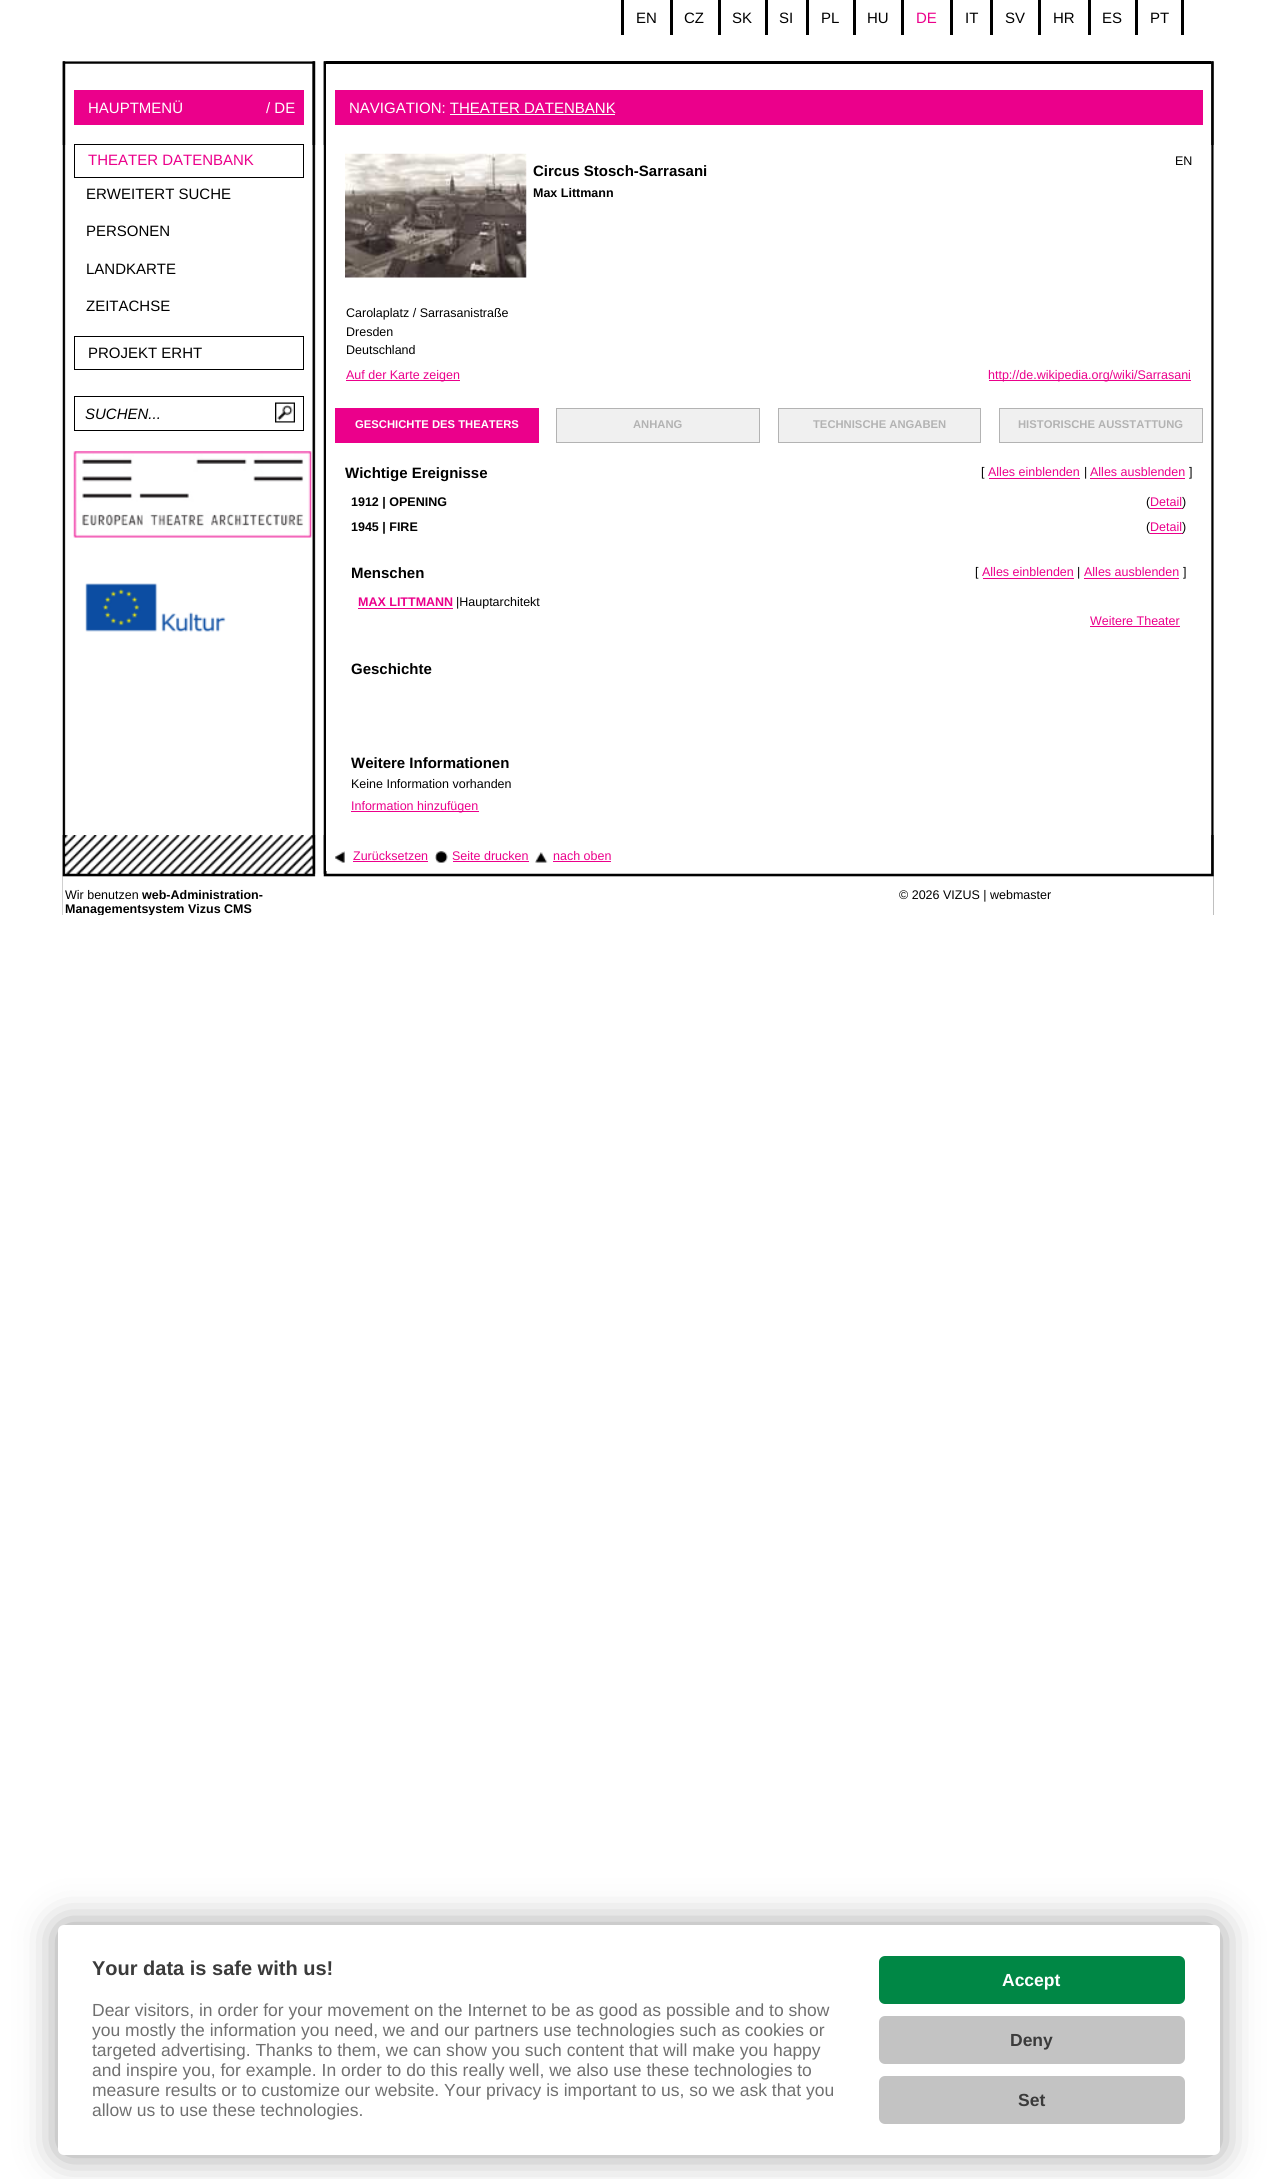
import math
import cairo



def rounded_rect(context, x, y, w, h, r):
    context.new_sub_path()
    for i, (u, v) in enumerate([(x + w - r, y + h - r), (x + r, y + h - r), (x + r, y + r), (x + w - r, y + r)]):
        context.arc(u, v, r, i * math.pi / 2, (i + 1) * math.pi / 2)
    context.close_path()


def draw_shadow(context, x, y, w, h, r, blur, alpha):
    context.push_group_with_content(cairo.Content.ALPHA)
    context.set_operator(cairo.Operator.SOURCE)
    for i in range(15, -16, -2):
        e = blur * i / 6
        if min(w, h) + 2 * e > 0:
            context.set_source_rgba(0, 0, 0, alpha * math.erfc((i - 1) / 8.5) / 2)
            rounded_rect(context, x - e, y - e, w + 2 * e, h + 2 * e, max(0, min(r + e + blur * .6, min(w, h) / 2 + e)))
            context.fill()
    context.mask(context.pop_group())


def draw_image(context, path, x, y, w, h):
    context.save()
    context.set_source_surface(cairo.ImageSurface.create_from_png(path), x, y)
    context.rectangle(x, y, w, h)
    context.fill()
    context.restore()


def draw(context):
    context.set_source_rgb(1, 1, 1)
    context.paint()
    context.set_source_rgb(0, 0, 0)
    context.rectangle(621, 0, 3, 35)
    context.fill()
    context.rectangle(670, 0, 3, 35)
    context.fill()
    context.rectangle(718, 0, 3, 35)
    context.fill()
    context.rectangle(765, 0, 3, 35)
    context.fill()
    context.rectangle(806, 0, 3, 35)
    context.fill()
    context.rectangle(853, 0, 3, 35)
    context.fill()
    context.rectangle(901, 0, 3, 35)
    context.fill()
    context.rectangle(950, 0, 3, 35)
    context.fill()
    context.rectangle(990, 0, 3, 35)
    context.fill()
    context.rectangle(1038, 0, 3, 35)
    context.fill()
    context.rectangle(1088, 0, 3, 35)
    context.fill()
    context.rectangle(1135, 0, 3, 35)
    context.fill()
    context.rectangle(1181, 0, 3, 35)
    context.fill()
    draw_image(context, "images/1.png", 62, 61, 1152, 854)
    draw_image(context, "images/2.png", 62, 61, 1152, 84)
    context.set_source_rgb(235 / 255, 0, 139 / 255)
    context.rectangle(74, 90, 230, 35)
    context.fill()
    context.rectangle(74.5, 144.5, 229, 33)
    context.set_source_rgb(0, 0, 0)
    context.set_line_width(1)
    context.stroke()
    context.rectangle(74.5, 336.5, 229, 33)
    context.stroke()
    context.rectangle(74.5, 396.5, 229, 34)
    context.stroke()
    draw_image(context, "images/3.png", 275, 402, 20, 21)
    draw_image(context, "images/4.png", 73, 451, 239, 87)
    draw_image(context, "images/5.png", 85, 583, 141, 49)
    draw_image(context, "images/10.png", 62, 835, 1152, 80)
    context.set_source_rgb(1, 1, 1)
    context.rectangle(326, 64, 573, 807)
    context.fill()
    context.set_source_rgb(0, 0, 0)
    context.rectangle(326, 61, 885, 3)
    context.fill()
    context.set_source_rgb(235 / 255, 0, 139 / 255)
    context.rectangle(335, 90, 868, 35)
    context.fill()
    context.set_source_rgb(1, 1, 1)
    context.rectangle(450, 114, 165, 1)
    context.fill()
    draw_image(context, "images/6.png", 345, 153, 182, 125)
    context.set_source_rgb(235 / 255, 0, 139 / 255)
    context.rectangle(346, 380, 114, 1)
    context.fill()
    context.rectangle(989, 380, 202, 1)
    context.fill()
    context.rectangle(335, 408, 204, 35)
    context.fill()
    context.set_source_rgb(240 / 255, 240 / 255, 240 / 255)
    context.rectangle(556.5, 408.5, 203, 34)
    context.fill_preserve()
    context.set_source_rgb(179 / 255, 179 / 255, 179 / 255)
    context.stroke()
    context.set_source_rgb(240 / 255, 240 / 255, 240 / 255)
    context.rectangle(778.5, 408.5, 202, 34)
    context.fill_preserve()
    context.set_source_rgb(179 / 255, 179 / 255, 179 / 255)
    context.stroke()
    context.set_source_rgb(240 / 255, 240 / 255, 240 / 255)
    context.rectangle(999.5, 408.5, 203, 34)
    context.fill_preserve()
    context.set_source_rgb(179 / 255, 179 / 255, 179 / 255)
    context.stroke()
    context.set_source_rgb(235 / 255, 0, 139 / 255)
    context.rectangle(989, 478, 91, 1)
    context.fill()
    context.rectangle(1090, 478, 95, 1)
    context.fill()
    context.rectangle(1150, 508, 33, 1)
    context.fill()
    context.rectangle(1150, 533, 33, 1)
    context.fill()
    context.rectangle(983, 578, 91, 1)
    context.fill()
    context.rectangle(1084, 578, 95, 1)
    context.fill()
    context.rectangle(358, 608, 95, 1)
    context.fill()
    context.rectangle(1090, 626, 90, 1)
    context.fill()
    context.rectangle(351, 811, 128, 1)
    context.fill()
    draw_image(context, "images/7.png", 335, 851, 10, 12)
    context.rectangle(353, 861, 75, 1)
    context.fill()
    draw_image(context, "images/8.png", 435, 851, 13, 12)
    context.rectangle(453, 861, 76, 1)
    context.fill()
    draw_image(context, "images/9.png", 535, 852, 13, 11)
    context.rectangle(553, 861, 58, 1)
    context.fill()
    context.set_source_rgb(0, 0, 0)
    draw_shadow(context, 58, 1925, 1162, 230, 6, 19, 0.4)
    context.set_source_rgb(1, 1, 1)
    rounded_rect(context, 58, 1925, 1162, 230, 6)
    context.fill()
    context.set_source_rgb(0, 135 / 255, 69 / 255)
    rounded_rect(context, 879, 1956, 306, 48, 6)
    context.fill()
    context.set_source_rgb(195 / 255, 195 / 255, 195 / 255)
    rounded_rect(context, 879, 2016, 306, 48, 6)
    context.fill()
    rounded_rect(context, 879, 2076, 306, 48, 6)
    context.fill()
    context.select_font_face("Liberation Sans")
    context.set_font_size(15)
    context.set_source_rgb(0, 0, 0)
    context.move_to(636, 23)
    context.show_text("EN")
    context.move_to(684, 23)
    context.show_text("CZ")
    context.move_to(732, 23)
    context.show_text("SK")
    context.move_to(779, 23)
    context.show_text("SI")
    context.move_to(821, 23)
    context.show_text("PL")
    context.move_to(867, 23)
    context.show_text("HU")
    context.set_source_rgb(235 / 255, 0, 139 / 255)
    context.move_to(916, 23)
    context.show_text("DE")
    context.set_source_rgb(0, 0, 0)
    context.move_to(965, 23)
    context.show_text("IT")
    context.move_to(1005, 23)
    context.show_text("SV")
    context.move_to(1053, 23)
    context.show_text("HR")
    context.move_to(1102, 23)
    context.show_text("ES")
    context.move_to(1150, 23)
    context.show_text("PT")
    context.set_source_rgb(1, 1, 1)
    context.move_to(88, 113)
    context.show_text("HAUPTMENÜ")
    context.move_to(266, 113)
    context.show_text("/ DE")
    context.set_source_rgb(235 / 255, 0, 139 / 255)
    context.move_to(88, 165)
    context.show_text("THEATER DATENBANK")
    context.set_source_rgb(0, 0, 0)
    context.move_to(86, 199)
    context.show_text("ERWEITERT SUCHE")
    context.move_to(86, 236)
    context.show_text("PERSONEN")
    context.move_to(86, 274)
    context.show_text("LANDKARTE")
    context.move_to(86, 311)
    context.show_text("ZEITACHSE")
    context.move_to(88, 358)
    context.show_text("PROJEKT ERHT")
    context.select_font_face("Liberation Sans", cairo.FontSlant.ITALIC)
    context.move_to(85, 419)
    context.show_text("SUCHEN...")
    context.select_font_face("Liberation Sans")
    context.set_source_rgb(1, 1, 1)
    context.move_to(349, 113)
    context.show_text("NAVIGATION: THEATER DATENBANK")
    context.set_font_size(12.5)
    context.set_source_rgb(0, 0, 0)
    context.move_to(1175, 165)
    context.show_text("EN")
    context.select_font_face("Liberation Sans", cairo.FontSlant.NORMAL, cairo.FontWeight.BOLD)
    context.set_font_size(15)
    context.move_to(533, 176)
    context.show_text("Circus Stosch-Sarrasani")
    context.set_font_size(12.5)
    context.move_to(533, 197)
    context.show_text("Max Littmann")
    context.select_font_face("Liberation Sans")
    context.move_to(346, 317)
    context.show_text("Carolaplatz / Sarrasanistraße")
    context.move_to(346, 336)
    context.show_text("Dresden")
    context.move_to(346, 354)
    context.show_text("Deutschland")
    context.set_source_rgb(235 / 255, 0, 139 / 255)
    context.move_to(346, 379)
    context.show_text("Auf der Karte zeigen")
    context.move_to(988, 379)
    context.show_text("http://de.wikipedia.org/wiki/Sarrasani")
    context.select_font_face("Liberation Sans", cairo.FontSlant.NORMAL, cairo.FontWeight.BOLD)
    context.set_font_size(11.25)
    context.set_source_rgb(1, 1, 1)
    context.move_to(355, 428)
    context.show_text("GESCHICHTE DES THEATERS")
    context.set_source_rgb(179 / 255, 179 / 255, 179 / 255)
    context.move_to(633, 428)
    context.show_text("ANHANG")
    context.move_to(813, 428)
    context.show_text("TECHNISCHE ANGABEN")
    context.move_to(1018, 428)
    context.show_text("HISTORISCHE AUSSTATTUNG")
    context.set_font_size(15)
    context.set_source_rgb(0, 0, 0)
    context.move_to(345, 478)
    context.show_text("Wichtige Ereignisse")
    context.select_font_face("Liberation Sans")
    context.set_font_size(12.5)
    context.move_to(981, 476)
    context.show_text("[")
    context.set_source_rgb(235 / 255, 0, 139 / 255)
    context.move_to(988, 476)
    context.show_text("Alles einblenden")
    context.set_source_rgb(0, 0, 0)
    context.move_to(1084, 476)
    context.show_text("|")
    context.set_source_rgb(235 / 255, 0, 139 / 255)
    context.move_to(1090, 476)
    context.show_text("Alles ausblenden")
    context.set_source_rgb(0, 0, 0)
    context.move_to(1189, 476)
    context.show_text("]")
    context.select_font_face("Liberation Sans", cairo.FontSlant.NORMAL, cairo.FontWeight.BOLD)
    context.move_to(351, 506)
    context.show_text("1912 | OPENING")
    context.select_font_face("Liberation Sans")
    context.move_to(1146, 506)
    context.show_text("(")
    context.set_source_rgb(235 / 255, 0, 139 / 255)
    context.move_to(1150, 506)
    context.show_text("Detail")
    context.set_source_rgb(0, 0, 0)
    context.move_to(1182, 506)
    context.show_text(")")
    context.select_font_face("Liberation Sans", cairo.FontSlant.NORMAL, cairo.FontWeight.BOLD)
    context.move_to(351, 531)
    context.show_text("1945 | FIRE")
    context.select_font_face("Liberation Sans")
    context.move_to(1146, 531)
    context.show_text("(")
    context.set_source_rgb(235 / 255, 0, 139 / 255)
    context.move_to(1150, 531)
    context.show_text("Detail")
    context.set_source_rgb(0, 0, 0)
    context.move_to(1182, 531)
    context.show_text(")")
    context.select_font_face("Liberation Sans", cairo.FontSlant.NORMAL, cairo.FontWeight.BOLD)
    context.set_font_size(15)
    context.move_to(351, 578)
    context.show_text("Menschen")
    context.select_font_face("Liberation Sans")
    context.set_font_size(12.5)
    context.move_to(975, 576)
    context.show_text("[")
    context.set_source_rgb(235 / 255, 0, 139 / 255)
    context.move_to(982, 576)
    context.show_text("Alles einblenden")
    context.set_source_rgb(0, 0, 0)
    context.move_to(1077, 576)
    context.show_text("|")
    context.set_source_rgb(235 / 255, 0, 139 / 255)
    context.move_to(1084, 576)
    context.show_text("Alles ausblenden")
    context.set_source_rgb(0, 0, 0)
    context.move_to(1183, 576)
    context.show_text("]")
    context.select_font_face("Liberation Sans", cairo.FontSlant.NORMAL, cairo.FontWeight.BOLD)
    context.set_source_rgb(235 / 255, 0, 139 / 255)
    context.move_to(358, 606)
    context.show_text("MAX LITTMANN")
    context.select_font_face("Liberation Sans")
    context.set_source_rgb(0, 0, 0)
    context.move_to(456, 606)
    context.show_text("|Hauptarchitekt")
    context.set_source_rgb(235 / 255, 0, 139 / 255)
    context.move_to(1090, 625)
    context.show_text("Weitere Theater")
    context.select_font_face("Liberation Sans", cairo.FontSlant.NORMAL, cairo.FontWeight.BOLD)
    context.set_font_size(15)
    context.set_source_rgb(0, 0, 0)
    context.move_to(351, 674)
    context.show_text("Geschichte")
    context.move_to(351, 768)
    context.show_text("Weitere Informationen")
    context.select_font_face("Liberation Sans")
    context.set_font_size(12.5)
    context.move_to(351, 788)
    context.show_text("Keine Information vorhanden")
    context.set_source_rgb(235 / 255, 0, 139 / 255)
    context.move_to(351, 810)
    context.show_text("Information hinzufügen")
    context.move_to(353, 860)
    context.show_text("Zurücksetzen")
    context.move_to(452, 860)
    context.show_text("Seite drucken")
    context.move_to(553, 860)
    context.show_text("nach oben")
    context.set_source_rgb(0, 0, 0)
    context.move_to(65, 899)
    context.show_text("Wir benutzen")
    context.select_font_face("Liberation Sans", cairo.FontSlant.NORMAL, cairo.FontWeight.BOLD)
    context.move_to(142, 899)
    context.show_text("web-Administration-")
    context.save()
    context.rectangle(65, 888, 248, 27)
    context.clip()
    context.move_to(65, 913)
    context.show_text("Managementsystem Vizus CMS")
    context.restore()
    context.select_font_face("Liberation Sans")
    context.move_to(899, 899)
    context.show_text("© 2026 VIZUS | webmaster")
    context.select_font_face("Liberation Sans", cairo.FontSlant.NORMAL, cairo.FontWeight.BOLD)
    context.set_font_size(20)
    context.set_source_rgb(59 / 255, 59 / 255, 59 / 255)
    context.move_to(92, 1975)
    context.show_text("Your data is safe with us!")
    context.select_font_face("Liberation Sans")
    context.set_font_size(17.5)
    context.set_source_rgb(112 / 255, 112 / 255, 112 / 255)
    context.move_to(92, 2016)
    context.show_text("Dear visitors, in order for your movement on the Internet to be as good as possible and to show")
    context.move_to(92, 2036)
    context.show_text("you mostly the information you need, we and our partners use technologies such as cookies or")
    context.move_to(92, 2056)
    context.show_text("targeted advertising. Thanks to them, we can show you such content that will make you happy")
    context.move_to(92, 2076)
    context.show_text("and inspire you, for example. In order to do this really well, we also use these technologies to")
    context.move_to(92, 2096)
    context.show_text("measure results or to customize our website. Your privacy is important to us, so we ask that you")
    context.move_to(92, 2116)
    context.show_text("allow us to use these technologies.")
    context.select_font_face("Liberation Sans", cairo.FontSlant.NORMAL, cairo.FontWeight.BOLD)
    context.set_source_rgb(1, 1, 1)
    context.move_to(1002, 1986)
    context.show_text("Accept")
    context.set_source_rgb(59 / 255, 59 / 255, 59 / 255)
    context.move_to(1010, 2046)
    context.show_text("Deny")
    context.move_to(1018, 2106)
    context.show_text("Set")


surface = cairo.ImageSurface(cairo.Format.RGB24, 1276, 2179)
context = cairo.Context(surface)
options = cairo.FontOptions()
options.set_hint_metrics(cairo.HintMetrics.OFF)
options.set_hint_style(cairo.HintStyle.NONE)
context.set_font_options(options)
context.set_miter_limit(4)
draw(context)
surface.write_to_png("out.png")
